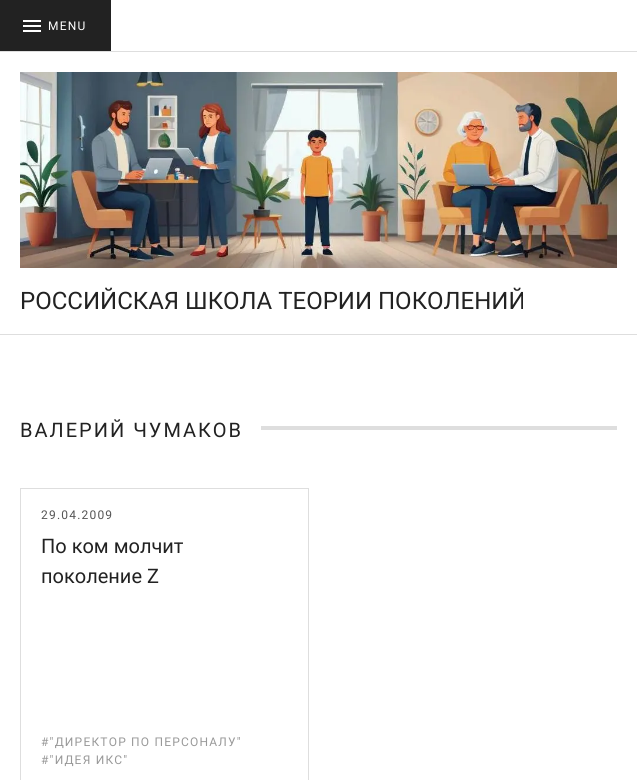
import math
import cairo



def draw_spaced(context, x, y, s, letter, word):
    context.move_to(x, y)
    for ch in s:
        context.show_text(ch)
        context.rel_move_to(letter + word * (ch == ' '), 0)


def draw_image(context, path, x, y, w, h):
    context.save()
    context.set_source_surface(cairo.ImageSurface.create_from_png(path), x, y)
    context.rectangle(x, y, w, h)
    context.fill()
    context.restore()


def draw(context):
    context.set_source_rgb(1, 1, 1)
    context.paint()
    context.set_source_rgb(222 / 255, 222 / 255, 222 / 255)
    context.rectangle(0, 51, 637, 1)
    context.fill()
    context.set_source_rgb(34 / 255, 34 / 255, 34 / 255)
    context.rectangle(0, 0, 111, 51)
    context.fill()
    draw_image(context, "images/1.png", 23, 20, 18, 12)
    context.set_source_rgb(222 / 255, 222 / 255, 222 / 255)
    context.rectangle(0, 334, 637, 1)
    context.fill()
    draw_image(context, "images/2.png", 20, 72, 597, 196)
    context.rectangle(261, 426, 356, 4)
    context.fill()
    context.rectangle(20.5, 488.5, 288, 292)
    context.set_line_width(1)
    context.stroke()
    context.select_font_face("Roboto")
    context.set_font_size(12)
    context.set_source_rgb(1, 1, 1)
    draw_spaced(context, 48, 30, "MENU", 1.2, 0)
    context.set_font_size(24)
    context.set_source_rgb(34 / 255, 34 / 255, 34 / 255)
    context.move_to(20, 309)
    context.show_text("РОССИЙСКАЯ ШКОЛА ТЕОРИИ ПОКОЛЕНИЙ")
    context.set_font_size(20)
    draw_spaced(context, 20, 437, "ВАЛЕРИЙ ЧУМАКОВ", 2, 0)
    context.set_font_size(12)
    context.set_source_rgb(85 / 255, 85 / 255, 85 / 255)
    draw_spaced(context, 41, 519, "29.04.2009", 1.2, 0)
    context.set_font_size(20)
    context.set_source_rgb(34 / 255, 34 / 255, 34 / 255)
    context.move_to(41, 553)
    context.show_text("По ком молчит")
    context.move_to(41, 583)
    context.show_text("поколение Z")
    context.set_font_size(12)
    context.set_source_rgb(153 / 255, 153 / 255, 153 / 255)
    draw_spaced(context, 41, 746, "#\"ДИРЕКТОР ПО ПЕРСОНАЛУ\"", 1.2, 0)
    draw_spaced(context, 41, 764, "#\"ИДЕЯ ИКС\"", 1.2, 0)


surface = cairo.ImageSurface(cairo.Format.RGB24, 637, 780)
context = cairo.Context(surface)
options = cairo.FontOptions()
options.set_hint_metrics(cairo.HintMetrics.OFF)
options.set_hint_style(cairo.HintStyle.NONE)
context.set_font_options(options)
context.set_miter_limit(4)
draw(context)
surface.write_to_png("out.png")
